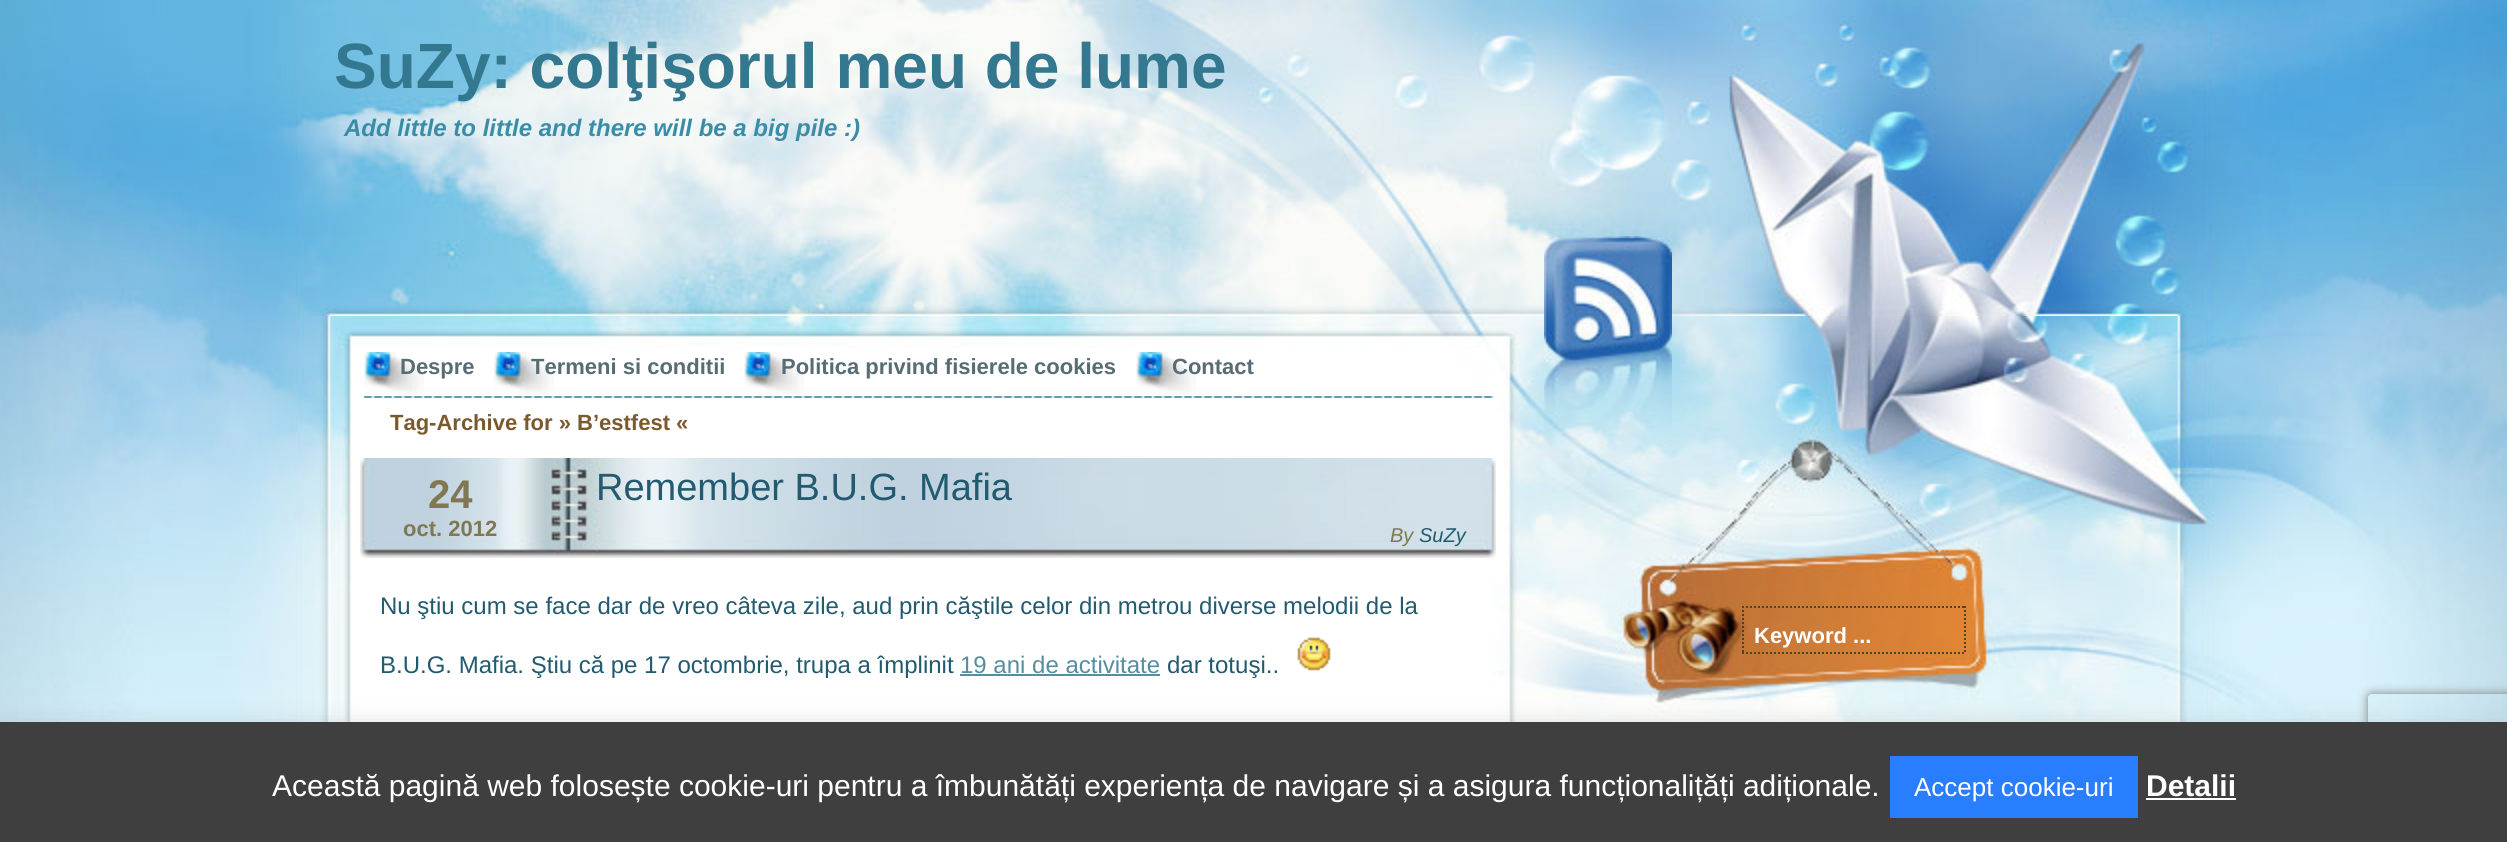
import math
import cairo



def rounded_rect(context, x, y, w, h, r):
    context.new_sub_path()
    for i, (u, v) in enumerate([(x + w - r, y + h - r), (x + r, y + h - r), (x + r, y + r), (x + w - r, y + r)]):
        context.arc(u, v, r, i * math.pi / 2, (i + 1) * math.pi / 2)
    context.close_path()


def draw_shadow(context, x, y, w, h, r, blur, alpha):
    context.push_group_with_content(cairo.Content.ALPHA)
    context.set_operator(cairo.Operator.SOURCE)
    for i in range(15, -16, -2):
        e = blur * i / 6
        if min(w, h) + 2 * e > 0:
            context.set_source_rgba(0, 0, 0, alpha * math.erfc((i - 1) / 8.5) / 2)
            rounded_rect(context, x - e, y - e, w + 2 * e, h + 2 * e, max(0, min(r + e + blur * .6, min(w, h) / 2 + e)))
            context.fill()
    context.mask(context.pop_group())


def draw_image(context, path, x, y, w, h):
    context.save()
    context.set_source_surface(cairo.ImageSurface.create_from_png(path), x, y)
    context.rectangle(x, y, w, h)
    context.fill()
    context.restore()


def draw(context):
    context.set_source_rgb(1, 1, 1)
    context.paint()
    draw_image(context, "images/1.png", 0, 0, 2507, 722)
    draw_image(context, "images/2.png", 304, 316, 1900, 406)
    draw_image(context, "images/3.png", 304, 0, 1900, 316)
    draw_image(context, "images/4.png", 1544, 236, 128, 200)
    draw_image(context, "images/5.png", 364, 396, 1130, 2)
    draw_image(context, "images/6.png", 364, 352, 60, 43)
    draw_image(context, "images/6.png", 494, 352, 60, 43)
    draw_image(context, "images/6.png", 744, 352, 60, 43)
    draw_image(context, "images/6.png", 1136, 352, 60, 43)
    draw_image(context, "images/7.png", 360, 458, 1136, 100)
    context.set_source_rgb(86 / 255, 141 / 255, 159 / 255)
    context.rectangle(960, 674, 200, 2)
    context.fill()
    draw_image(context, "images/8.png", 1297, 637, 34, 34)
    context.new_path()
    context.move_to(1742, 607)
    context.line_to(1966, 607)
    context.set_source_rgb(74 / 255, 68 / 255, 44 / 255)
    context.set_dash([2, 2])
    context.stroke()
    context.new_path()
    context.move_to(1965, 606)
    context.line_to(1965, 654)
    context.stroke()
    context.new_path()
    context.move_to(1742, 653)
    context.line_to(1966, 653)
    context.stroke()
    context.new_path()
    context.move_to(1743, 606)
    context.line_to(1743, 654)
    context.stroke()
    context.set_source_rgb(172 / 255, 171 / 255, 171 / 255)
    draw_shadow(context, 0, 720, 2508, 120, 0, 10, 0.3)
    context.save()
    context.set_fill_rule(cairo.FillRule.EVEN_ODD)
    context.new_path()
    context.move_to(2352, 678)
    context.line_to(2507, 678)
    context.line_to(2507, 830)
    context.line_to(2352, 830)
    context.close_path()
    context.move_to(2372, 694)
    context.line_to(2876, 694)
    context.curve_to(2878, 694, 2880, 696, 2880, 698)
    context.line_to(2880, 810)
    context.curve_to(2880, 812, 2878, 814, 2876, 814)
    context.line_to(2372, 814)
    context.curve_to(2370, 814, 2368, 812, 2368, 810)
    context.line_to(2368, 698)
    context.curve_to(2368, 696, 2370, 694, 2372, 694)
    context.close_path()
    context.clip()
    context.set_source_rgb(128 / 255, 128 / 255, 128 / 255)
    draw_shadow(context, 2368, 694, 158, 120, 4, 5, 1)
    context.restore()
    context.set_source_rgb(63 / 255, 63 / 255, 63 / 255)
    context.rectangle(0, 722, 2507, 120)
    context.fill()
    context.set_source_rgb(40 / 255, 126 / 255, 1)
    context.rectangle(1890, 756, 248, 62)
    context.fill()
    context.set_source_rgb(1, 1, 1)
    context.rectangle(2146, 798, 90, 2)
    context.fill()
    context.select_font_face("Liberation Sans", cairo.FontSlant.NORMAL, cairo.FontWeight.BOLD)
    context.set_font_size(64)
    context.set_source_rgb(51 / 255, 120 / 255, 143 / 255)
    context.move_to(334, 88)
    context.show_text("SuZy: colţişorul meu de lume")
    context.select_font_face("Liberation Sans", cairo.FontSlant.ITALIC, cairo.FontWeight.BOLD)
    context.set_font_size(24)
    context.set_source_rgb(57 / 255, 141 / 255, 167 / 255)
    context.move_to(344, 136)
    context.show_text("Add little to little and there will be a big pile :)")
    context.select_font_face("Liberation Sans", cairo.FontSlant.NORMAL, cairo.FontWeight.BOLD)
    context.set_font_size(22)
    context.set_source_rgb(87 / 255, 108 / 255, 115 / 255)
    context.move_to(400, 374)
    context.show_text("Despre")
    context.move_to(531, 374)
    context.show_text("Termeni si conditii")
    context.move_to(781, 374)
    context.show_text("Politica privind fisierele cookies")
    context.move_to(1172, 374)
    context.show_text("Contact")
    context.set_source_rgb(123 / 255, 89 / 255, 44 / 255)
    context.move_to(390, 430)
    context.show_text("Tag-Archive for » B’estfest «")
    context.set_font_size(40)
    context.set_source_rgb(129 / 255, 119 / 255, 83 / 255)
    context.move_to(428, 508)
    context.show_text("24")
    context.set_font_size(22)
    context.move_to(403, 536)
    context.show_text("oct. 2012")
    context.select_font_face("Liberation Sans")
    context.set_font_size(38)
    context.set_source_rgb(34 / 255, 90 / 255, 111 / 255)
    context.move_to(596, 500)
    context.show_text("Remember B.U.G. Mafia")
    context.select_font_face("Liberation Sans", cairo.FontSlant.ITALIC)
    context.set_font_size(20)
    context.set_source_rgb(129 / 255, 119 / 255, 83 / 255)
    context.move_to(1390, 542)
    context.show_text("By")
    context.set_source_rgb(34 / 255, 90 / 255, 111 / 255)
    context.move_to(1419, 542)
    context.show_text("SuZy")
    context.select_font_face("Liberation Sans")
    context.set_font_size(24)
    context.move_to(380, 614)
    context.show_text("Nu ştiu cum se face dar de vreo câteva zile, aud prin căştile celor din metrou diverse melodii de la")
    context.move_to(380, 673)
    context.show_text("B.U.G. Mafia. Ştiu că pe 17 octombrie, trupa a împlinit")
    context.set_source_rgb(86 / 255, 141 / 255, 159 / 255)
    context.move_to(960, 673)
    context.show_text("19 ani de activitate")
    context.set_source_rgb(34 / 255, 90 / 255, 111 / 255)
    context.move_to(1167, 673)
    context.show_text("dar totuşi..")
    context.select_font_face("Liberation Sans", cairo.FontSlant.NORMAL, cairo.FontWeight.BOLD)
    context.set_font_size(22)
    context.set_source_rgb(1, 1, 1)
    context.move_to(1754, 643)
    context.show_text("Keyword ...")
    context.select_font_face("Liberation Sans")
    context.set_font_size(30)
    context.move_to(272, 796)
    context.show_text("Această pagină web folosește cookie-uri pentru a îmbunătăți experiența de navigare și a asigura funcționalițăți adiționale.")
    context.set_font_size(26)
    context.move_to(1914, 796)
    context.show_text("Accept cookie-uri")
    context.select_font_face("Liberation Sans", cairo.FontSlant.NORMAL, cairo.FontWeight.BOLD)
    context.set_font_size(30)
    context.move_to(2146, 796)
    context.show_text("Detalii")


surface = cairo.ImageSurface(cairo.Format.RGB24, 2507, 842)
context = cairo.Context(surface)
options = cairo.FontOptions()
options.set_hint_metrics(cairo.HintMetrics.OFF)
options.set_hint_style(cairo.HintStyle.NONE)
context.set_font_options(options)
context.set_miter_limit(4)
draw(context)
surface.write_to_png("out.png")
